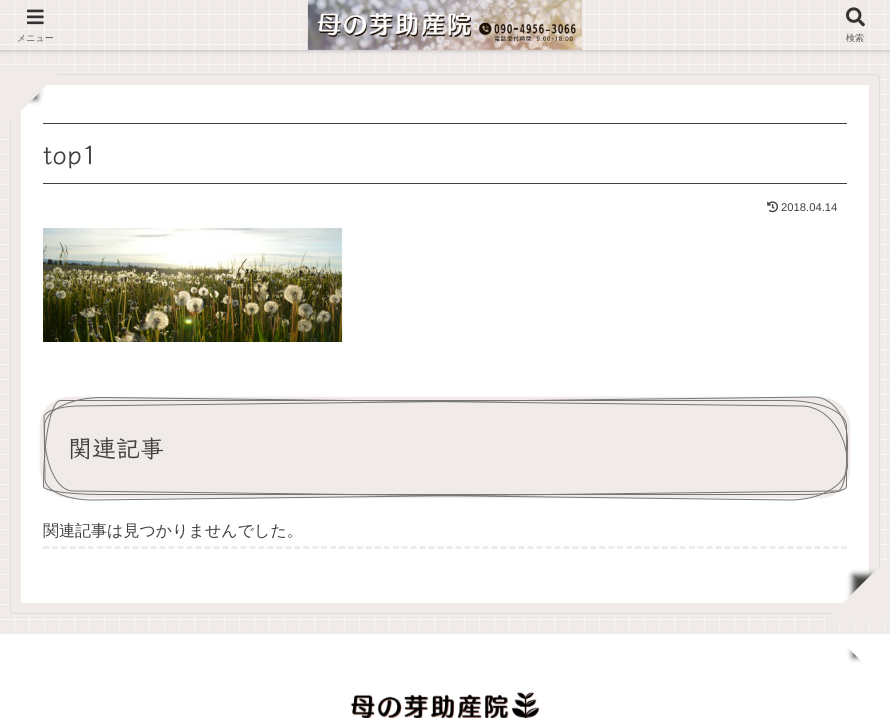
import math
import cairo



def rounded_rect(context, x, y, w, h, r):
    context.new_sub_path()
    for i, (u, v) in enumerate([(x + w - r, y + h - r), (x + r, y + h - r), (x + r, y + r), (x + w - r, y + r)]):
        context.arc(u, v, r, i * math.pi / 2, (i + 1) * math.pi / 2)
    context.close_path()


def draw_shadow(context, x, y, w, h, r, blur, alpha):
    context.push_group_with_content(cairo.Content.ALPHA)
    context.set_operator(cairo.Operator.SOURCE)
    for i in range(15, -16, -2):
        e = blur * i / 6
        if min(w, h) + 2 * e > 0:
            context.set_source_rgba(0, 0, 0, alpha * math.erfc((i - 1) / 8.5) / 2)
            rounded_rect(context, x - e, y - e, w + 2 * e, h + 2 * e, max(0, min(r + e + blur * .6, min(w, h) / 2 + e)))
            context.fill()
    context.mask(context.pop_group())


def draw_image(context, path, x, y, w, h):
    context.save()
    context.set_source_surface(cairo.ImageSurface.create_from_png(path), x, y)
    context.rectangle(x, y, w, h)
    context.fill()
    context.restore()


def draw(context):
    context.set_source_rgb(240 / 255, 235 / 255, 232 / 255)
    context.paint()
    draw_image(context, "images/1.png", 14, 50, 871, 584)
    draw_image(context, "images/2.png", 0, 64, 890, 556)
    context.set_source_rgb(169 / 255, 169 / 255, 169 / 255)
    draw_shadow(context, 0, 0, 890, 50, 0, 2.5, 1)
    context.set_source_rgb(1, 1, 1)
    rounded_rect(context, 10, 74, 870, 540, 4)
    context.fill()
    context.new_path()
    context.move_to(16, 80)
    context.line_to(874, 80)
    context.line_to(874, 608)
    context.line_to(16, 608)
    context.close_path()
    context.set_source_rgb(240 / 255, 235 / 255, 232 / 255)
    context.set_line_width(10)
    context.stroke()
    rounded_rect(context, 10.5, 74.5, 869, 539, 3.5)
    context.set_source_rgb(221 / 255, 221 / 255, 221 / 255)
    context.set_line_width(1)
    context.stroke()
    context.save()
    context.set_fill_rule(cairo.FillRule.EVEN_ODD)
    context.new_path()
    context.move_to(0, 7)
    context.line_to(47, 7)
    context.line_to(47, 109)
    context.line_to(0, 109)
    context.close_path()
    context.move_to(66.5, 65)
    context.line_to(-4, 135.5)
    context.line_to(-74.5, 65)
    context.line_to(-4, -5.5)
    context.close_path()
    context.clip()
    context.set_source_rgb(65 / 255, 64 / 255, 62 / 255)
    draw_shadow(context, -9, 17, 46, 82, 0, 3, 1)
    context.restore()
    context.set_source_rgb(240 / 255, 235 / 255, 232 / 255)
    context.rectangle(0, 0, 890, 50)
    context.fill()
    draw_image(context, "images/3.png", 14, 0, 871, 50)
    gradient = cairo.LinearGradient(7.5, 0, 7.5, 15)
    gradient.add_color_stop_rgba(0.93, 1, 1, 1, 0)
    gradient.add_color_stop_rgba(1, 1, 1, 1, 1)
    context.set_source(gradient)
    context.rectangle(0, 14, 890, 1)
    context.fill()
    gradient = cairo.LinearGradient(7.5, 15, 7.5, 30)
    gradient.add_color_stop_rgba(0.93, 1, 1, 1, 0)
    gradient.add_color_stop_rgba(1, 1, 1, 1, 1)
    context.set_source(gradient)
    context.rectangle(0, 29, 890, 1)
    context.fill()
    gradient = cairo.LinearGradient(7.5, 30, 7.5, 45)
    gradient.add_color_stop_rgba(0.93, 1, 1, 1, 0)
    gradient.add_color_stop_rgba(1, 1, 1, 1, 1)
    context.set_source(gradient)
    context.rectangle(0, 44, 890, 1)
    context.fill()
    draw_image(context, "images/4.png", 27, 9, 17, 16)
    draw_image(context, "images/5.png", 307, 0, 275, 50)
    draw_image(context, "images/6.png", 846, 7, 19, 20)
    context.set_source_rgb(65 / 255, 64 / 255, 62 / 255)
    context.rectangle(43, 123, 804, 1)
    context.fill()
    context.set_source_rgb(240 / 255, 235 / 255, 232 / 255)
    context.new_path()
    context.move_to(67, 65)
    context.line_to(-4, 136)
    context.line_to(-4, 65)
    context.close_path()
    context.fill()
    context.set_source_rgb(65 / 255, 64 / 255, 62 / 255)
    context.rectangle(43, 183, 804, 1)
    context.fill()
    draw_image(context, "images/7.png", 767, 201, 11, 12)
    draw_image(context, "images/8.png", 43, 228, 300, 114)
    context.set_source_rgb(240 / 255, 235 / 255, 232 / 255)
    draw_shadow(context, 40, 397, 810, 101, 29, 0.5, 1)
    context.set_source_rgb(240 / 255, 235 / 255, 232 / 255)
    context.new_path()
    context.move_to(60, 400)
    context.line_to(787, 400)
    context.curve_to(820, 400, 847, 412, 847, 426)
    context.line_to(847, 486)
    context.curve_to(847, 491, 828, 495, 804, 495)
    context.line_to(103, 495)
    context.curve_to(70, 495, 43, 491, 43, 486)
    context.curve_to(43, 439, 51, 400, 60, 400)
    context.close_path()
    context.fill()
    context.new_path()
    context.move_to(60.5, 400.5)
    context.line_to(786.5, 400.5)
    context.curve_to(819.5, 400.5, 846.5, 412, 846.5, 426)
    context.line_to(846.5, 486.5)
    context.curve_to(846.5, 491, 827.5, 494.5, 804, 494.5)
    context.line_to(103.5, 494.5)
    context.curve_to(70.5, 494.5, 43.5, 491, 43.5, 486.5)
    context.curve_to(43.5, 439, 51, 400.5, 60.5, 400.5)
    context.close_path()
    context.set_source_rgb(119 / 255, 119 / 255, 119 / 255)
    context.stroke()
    context.new_path()
    context.move_to(43, 547.5)
    context.line_to(847, 547.5)
    context.set_source_rgb(240 / 255, 235 / 255, 232 / 255)
    context.set_line_width(3)
    context.set_dash([6, 2.97])
    context.stroke()
    context.set_source_rgb(1, 1, 1)
    context.rectangle(0, 634, 890, 84)
    context.fill()
    context.save()
    context.set_fill_rule(cairo.FillRule.EVEN_ODD)
    context.new_path()
    context.move_to(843, 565)
    context.line_to(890, 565)
    context.line_to(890, 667)
    context.line_to(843, 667)
    context.close_path()
    context.move_to(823.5, 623)
    context.line_to(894, 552.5)
    context.line_to(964.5, 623)
    context.line_to(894, 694)
    context.close_path()
    context.clip()
    context.set_source_rgb(65 / 255, 64 / 255, 62 / 255)
    draw_shadow(context, 853, 575, 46, 82, 0, 3, 1)
    context.restore()
    context.set_source_rgb(240 / 255, 235 / 255, 232 / 255)
    context.new_path()
    context.move_to(823, 623)
    context.line_to(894, 552)
    context.line_to(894, 623)
    context.close_path()
    context.fill()
    draw_image(context, "images/9.png", 350, 692, 190, 26)
    context.select_font_face("WenQuanYi Zen Hei Medium")
    context.set_font_size(9)
    context.set_source_rgb(89 / 255, 88 / 255, 87 / 255)
    context.move_to(17, 41)
    context.show_text("メニュー")
    context.move_to(846, 41)
    context.show_text("検索")
    context.select_font_face("Klee One SemiBold")
    context.set_font_size(26)
    context.set_source_rgb(65 / 255, 64 / 255, 62 / 255)
    context.move_to(43, 164)
    context.show_text("top1")
    context.select_font_face("Liberation Sans")
    context.set_font_size(11.25)
    context.move_to(781, 211)
    context.show_text("2018.04.14")
    context.select_font_face("Klee One SemiBold")
    context.set_font_size(24)
    context.move_to(68, 457)
    context.show_text("関連記事")
    context.new_path()
    context.move_to(77, 406)
    context.line_to(814, 397)
    context.curve_to(832, 397, 847, 416.5, 847.5, 441)
    context.curve_to(848, 468.5, 843.5, 491, 837.5, 491)
    context.line_to(95, 500)
    context.curve_to(67.5, 500.5, 45, 491, 45, 479)
    context.line_to(44, 417)
    context.curve_to(44, 411.5, 59, 406.5, 77, 406)
    context.close_path()
    context.set_source_rgb(119 / 255, 119 / 255, 119 / 255)
    context.set_line_width(1)
    context.set_dash([])
    context.stroke()
    context.new_path()
    context.move_to(104, 397.5)
    context.line_to(801, 406)
    context.curve_to(827, 406, 847.5, 433, 847.5, 465.5)
    context.curve_to(847, 485, 820.5, 500.5, 788, 500)
    context.line_to(73, 491)
    context.curve_to(57, 491, 44.5, 464.5, 44.5, 432)
    context.line_to(44.5, 426)
    context.curve_to(45, 410, 71.5, 397, 104, 397.5)
    context.close_path()
    context.stroke()
    context.select_font_face("WenQuanYi Zen Hei Medium")
    context.set_font_size(16)
    context.set_source_rgb(65 / 255, 64 / 255, 62 / 255)
    context.move_to(43, 536)
    context.show_text("関連記事は見つかりませんでした。")


surface = cairo.ImageSurface(cairo.Format.RGB24, 890, 718)
context = cairo.Context(surface)
options = cairo.FontOptions()
options.set_hint_metrics(cairo.HintMetrics.OFF)
options.set_hint_style(cairo.HintStyle.NONE)
context.set_font_options(options)
context.set_miter_limit(4)
draw(context)
surface.write_to_png("out.png")
